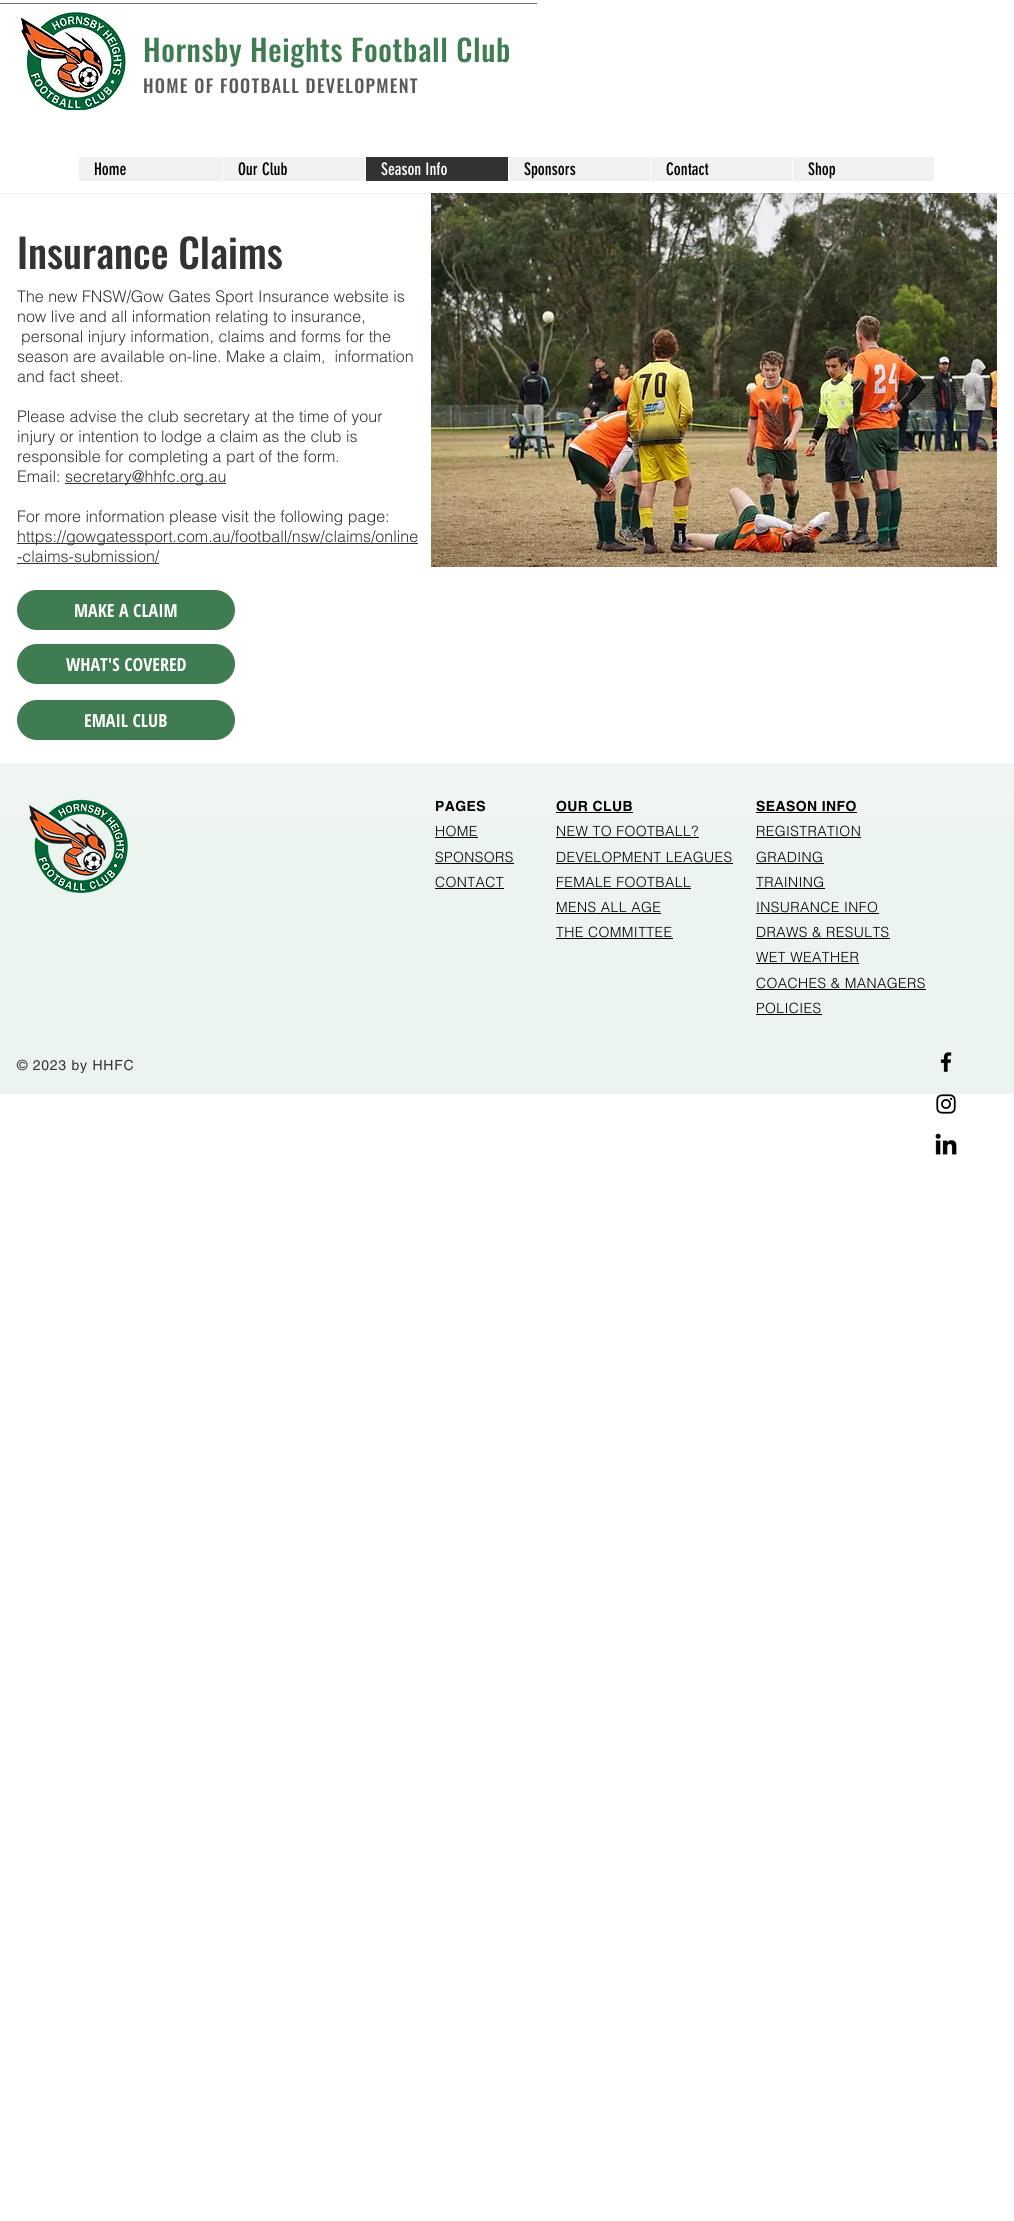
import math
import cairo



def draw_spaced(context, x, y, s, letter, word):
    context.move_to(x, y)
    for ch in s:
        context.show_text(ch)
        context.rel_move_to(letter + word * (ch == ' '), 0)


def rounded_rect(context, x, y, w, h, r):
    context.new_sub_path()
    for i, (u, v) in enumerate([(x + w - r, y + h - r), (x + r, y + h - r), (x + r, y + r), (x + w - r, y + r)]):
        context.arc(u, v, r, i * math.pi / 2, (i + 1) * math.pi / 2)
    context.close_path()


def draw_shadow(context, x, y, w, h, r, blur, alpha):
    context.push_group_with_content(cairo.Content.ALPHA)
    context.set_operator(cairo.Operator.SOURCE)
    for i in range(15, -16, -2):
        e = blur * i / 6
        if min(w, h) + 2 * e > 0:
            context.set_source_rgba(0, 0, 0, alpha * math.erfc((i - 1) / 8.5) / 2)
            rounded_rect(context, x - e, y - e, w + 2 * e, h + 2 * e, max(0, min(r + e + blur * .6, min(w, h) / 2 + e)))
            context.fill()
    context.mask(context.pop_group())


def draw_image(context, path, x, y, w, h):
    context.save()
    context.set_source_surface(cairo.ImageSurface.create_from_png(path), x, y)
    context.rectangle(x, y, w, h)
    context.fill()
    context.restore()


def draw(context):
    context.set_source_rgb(1, 1, 1)
    context.paint()
    draw_image(context, "images/2.png", 431, 193, 566, 374)
    context.save()
    context.rectangle(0, 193, 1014, 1)
    context.clip()
    context.set_source_rgb(0, 0, 0)
    draw_shadow(context, 0, 0, 1014, 190, 0, 2.5, 0.5)
    context.restore()
    context.set_source_rgb(115 / 255, 115 / 255, 115 / 255)
    context.rectangle(0, 3, 537, 1)
    context.fill()
    draw_image(context, "images/1.png", 21, 12, 106, 98)
    context.set_source_rgb(241 / 255, 241 / 255, 241 / 255)
    context.rectangle(79, 157, 855, 24)
    context.fill()
    context.set_source_rgb(1, 1, 1)
    context.rectangle(222, 157, 1, 24)
    context.fill()
    context.set_source_rgb(50 / 255, 50 / 255, 50 / 255)
    context.rectangle(366, 157, 142, 24)
    context.fill()
    context.set_source_rgb(1, 1, 1)
    context.rectangle(365, 157, 1, 24)
    context.fill()
    context.rectangle(508, 157, 1, 24)
    context.fill()
    context.rectangle(650, 157, 1, 24)
    context.fill()
    context.rectangle(792, 157, 1, 24)
    context.fill()
    context.rectangle(0, 190, 1014, 3)
    context.fill()
    context.set_source_rgb(51 / 255, 51 / 255, 51 / 255)
    context.rectangle(65, 483, 161, 1)
    context.fill()
    context.rectangle(17, 543, 401, 1)
    context.fill()
    context.rectangle(17, 563, 142, 1)
    context.fill()
    context.set_source_rgb(64 / 255, 124 / 255, 81 / 255)
    rounded_rect(context, 17, 590, 218, 40, 20)
    context.fill()
    rounded_rect(context, 17, 644, 218, 40, 20)
    context.fill()
    rounded_rect(context, 17, 700, 218, 40, 20)
    context.fill()
    context.set_source_rgb(235 / 255, 244 / 255, 238 / 255)
    context.rectangle(0, 763, 1014, 331)
    context.fill()
    draw_image(context, "images/3.png", 0, 763, 1014, 56)
    draw_image(context, "images/4.png", 28, 799, 100, 94)
    context.set_source_rgb(0, 0, 0)
    context.rectangle(435, 837, 43, 1)
    context.fill()
    context.rectangle(435, 863, 79, 1)
    context.fill()
    context.rectangle(435, 888, 69, 1)
    context.fill()
    context.rectangle(556, 812, 77, 1)
    context.fill()
    context.rectangle(556, 837, 143, 1)
    context.fill()
    context.rectangle(556, 863, 177, 1)
    context.fill()
    context.rectangle(556, 888, 135, 1)
    context.fill()
    context.rectangle(556, 913, 105, 1)
    context.fill()
    context.rectangle(556, 938, 117, 1)
    context.fill()
    context.rectangle(756, 812, 101, 1)
    context.fill()
    context.rectangle(756, 837, 105, 1)
    context.fill()
    context.rectangle(756, 863, 68, 1)
    context.fill()
    context.rectangle(756, 888, 69, 1)
    context.fill()
    context.rectangle(756, 913, 123, 1)
    context.fill()
    context.rectangle(756, 938, 134, 1)
    context.fill()
    context.rectangle(756, 963, 103, 1)
    context.fill()
    context.rectangle(756, 989, 170, 1)
    context.fill()
    context.rectangle(756, 1014, 66, 1)
    context.fill()
    draw_image(context, "images/5.png", 940, 1052, 12, 20)
    draw_image(context, "images/6.png", 936, 1094, 20, 20)
    draw_image(context, "images/7.png", 935, 1133, 22, 22)
    context.select_font_face("Oswald Medium")
    context.set_font_size(30)
    context.set_source_rgb(64 / 255, 124 / 255, 81 / 255)
    draw_spaced(context, 143, 62, "Hornsby Heights Football Club", 0.6, 0)
    context.set_font_size(18)
    context.set_source_rgb(89 / 255, 89 / 255, 89 / 255)
    draw_spaced(context, 143, 93, "HOME OF FOOTBALL DEVELOPMENT", 1.25, 0)
    context.select_font_face("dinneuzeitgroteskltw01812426")
    context.set_font_size(17)
    context.set_source_rgb(0, 0, 0)
    context.move_to(94, 175)
    context.show_text("Home")
    context.move_to(238, 175)
    context.show_text("Our Club")
    context.set_source_rgb(1, 1, 1)
    context.move_to(381, 175)
    context.show_text("Season Info")
    context.set_source_rgb(0, 0, 0)
    context.move_to(524, 175)
    context.show_text("Sponsors")
    context.move_to(666, 175)
    context.show_text("Contact")
    context.move_to(808, 175)
    context.show_text("Shop")
    context.select_font_face("Oswald Medium")
    context.set_font_size(40)
    context.set_source_rgb(51 / 255, 51 / 255, 51 / 255)
    context.move_to(17, 269)
    context.show_text("Insurance Claims")
    context.select_font_face("helvetica Light")
    context.set_font_size(16)
    context.move_to(17, 302)
    context.show_text("The new FNSW/Gow Gates Sport Insurance website is")
    context.move_to(17, 322)
    context.show_text("now live and all information relating to insurance,")
    context.move_to(21, 342)
    context.show_text("personal injury information, claims and forms for the")
    context.move_to(17, 362)
    context.show_text("season are available on-line. Make a claim,  information")
    context.move_to(17, 382)
    context.show_text("and fact sheet.")
    context.move_to(17, 422)
    context.show_text("Please advise the club secretary at the time of your")
    context.move_to(17, 442)
    context.show_text("injury or intention to lodge a claim as the club is")
    context.move_to(17, 462)
    context.show_text("responsible for completing a part of the form.")
    context.move_to(17, 482)
    context.show_text("Email:")
    context.move_to(65, 482)
    context.show_text("secretary@hhfc.org.au")
    context.move_to(17, 522)
    context.show_text("For more information please visit the following page:")
    context.move_to(17, 542)
    context.show_text("https://gowgatessport.com.au/football/nsw/claims/online")
    context.move_to(17, 562)
    context.show_text("-claims-submission/")
    context.select_font_face("Open Sans Condensed", cairo.FontSlant.NORMAL, cairo.FontWeight.BOLD)
    context.set_font_size(18)
    context.set_source_rgb(1, 1, 1)
    context.move_to(74, 617)
    context.show_text("MAKE A CLAIM")
    context.move_to(66, 671)
    context.show_text("WHAT'S COVERED")
    context.move_to(84, 727)
    context.show_text("EMAIL CLUB")
    context.select_font_face("helvetica", cairo.FontSlant.NORMAL, cairo.FontWeight.BOLD)
    context.set_font_size(14)
    context.set_source_rgb(0, 0, 0)
    draw_spaced(context, 435, 811, "PAGES", 0.4, 0)
    context.select_font_face("helvetica Light")
    draw_spaced(context, 435, 836, "HOME", 0.4, 0)
    draw_spaced(context, 435, 862, "SPONSORS", 0.4, 0)
    draw_spaced(context, 435, 887, "CONTACT", 0.4, 0)
    context.select_font_face("helvetica", cairo.FontSlant.NORMAL, cairo.FontWeight.BOLD)
    draw_spaced(context, 556, 811, "OUR CLUB", 0.4, 0)
    context.select_font_face("helvetica Light")
    draw_spaced(context, 556, 836, "NEW TO FOOTBALL?", 0.4, 0)
    draw_spaced(context, 556, 862, "DEVELOPMENT LEAGUES", 0.4, 0)
    draw_spaced(context, 556, 887, "FEMALE FOOTBALL", 0.4, 0)
    draw_spaced(context, 556, 912, "MENS ALL AGE", 0.4, 0)
    draw_spaced(context, 556, 937, "THE COMMITTEE", 0.4, 0)
    context.select_font_face("helvetica", cairo.FontSlant.NORMAL, cairo.FontWeight.BOLD)
    draw_spaced(context, 756, 811, "SEASON INFO", 0.4, 0)
    context.select_font_face("helvetica Light")
    draw_spaced(context, 756, 836, "REGISTRATION", 0.4, 0)
    draw_spaced(context, 756, 862, "GRADING", 0.4, 0)
    draw_spaced(context, 756, 887, "TRAINING", 0.4, 0)
    draw_spaced(context, 756, 912, "INSURANCE INFO", 0.4, 0)
    draw_spaced(context, 756, 937, "DRAWS & RESULTS", 0.4, 0)
    draw_spaced(context, 756, 962, "WET WEATHER", 0.4, 0)
    draw_spaced(context, 756, 988, "COACHES & MANAGERS", 0.4, 0)
    draw_spaced(context, 756, 1013, "POLICIES", 0.4, 0)
    context.select_font_face("helvetica")
    context.set_source_rgb(51 / 255, 51 / 255, 51 / 255)
    draw_spaced(context, 17, 1070, "© 2023 by HHFC", 0.75, 0)


surface = cairo.ImageSurface(cairo.Format.RGB24, 1014, 2221)
context = cairo.Context(surface)
options = cairo.FontOptions()
options.set_hint_metrics(cairo.HintMetrics.OFF)
options.set_hint_style(cairo.HintStyle.NONE)
context.set_font_options(options)
context.set_miter_limit(4)
draw(context)
surface.write_to_png("out.png")
